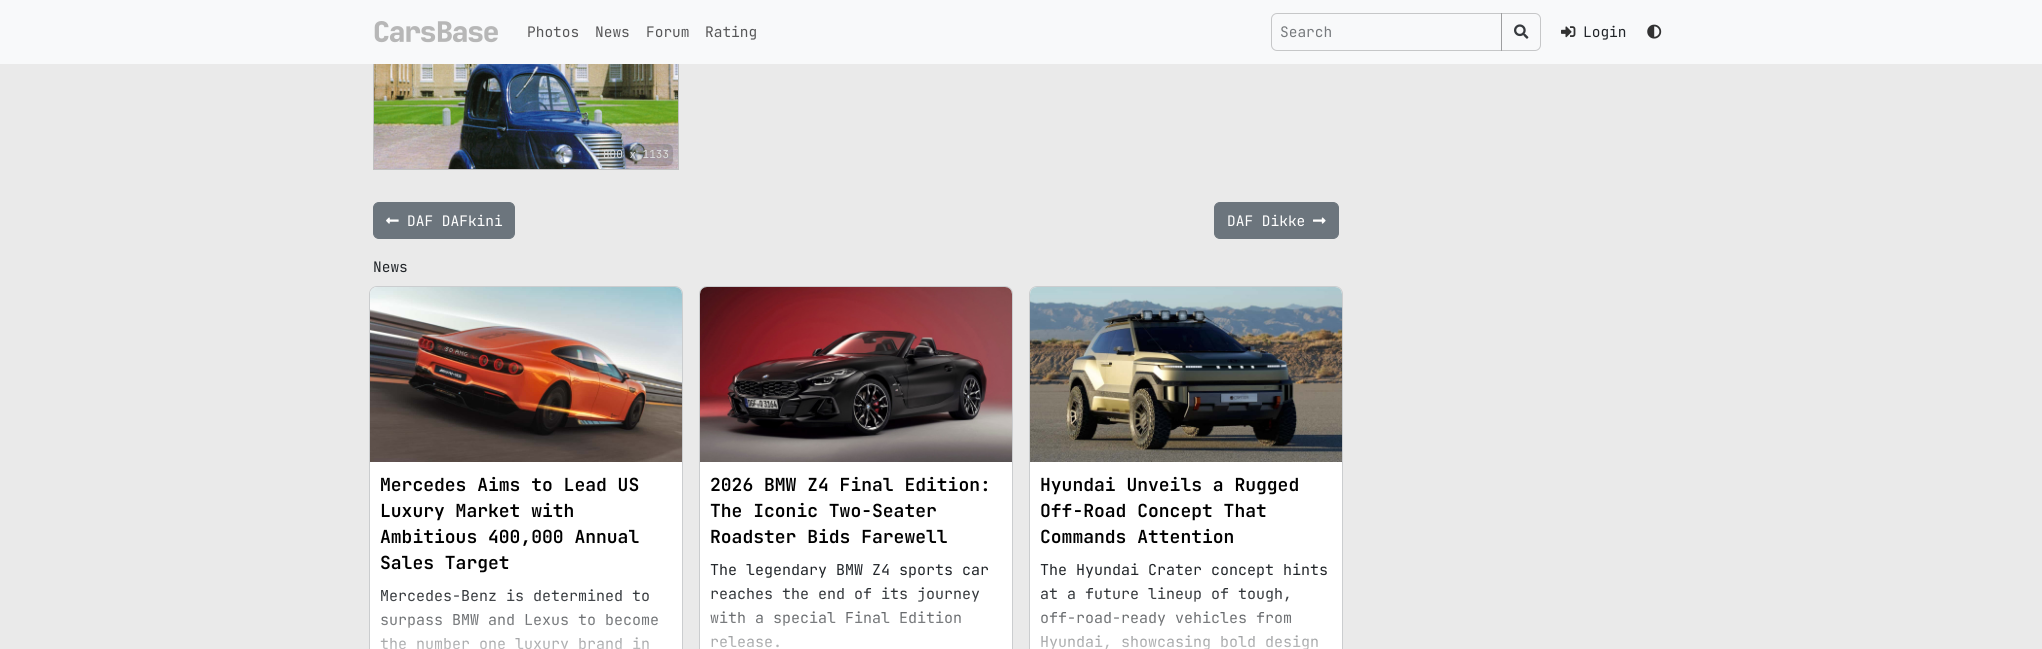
import math
import cairo



def rounded_rect(context, x, y, w, h, r):
    context.new_sub_path()
    for i, (u, v) in enumerate([(x + w - r, y + h - r), (x + r, y + h - r), (x + r, y + r), (x + w - r, y + r)]):
        context.arc(u, v, r, i * math.pi / 2, (i + 1) * math.pi / 2)
    context.close_path()


def draw_image(context, path, x, y, w, h):
    context.save()
    context.set_source_surface(cairo.ImageSurface.create_from_png(path), x, y)
    context.rectangle(x, y, w, h)
    context.fill()
    context.restore()


def draw(context):
    context.set_source_rgb(234 / 255, 234 / 255, 234 / 255)
    context.paint()
    context.rectangle(373.5, -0.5, 305, 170)
    context.set_source_rgb(192 / 255, 192 / 255, 192 / 255)
    context.set_line_width(1)
    context.stroke()
    context.set_source_rgb(248 / 255, 249 / 255, 250 / 255)
    context.rectangle(0, 0, 2042, 64)
    context.fill()
    draw_image(context, "images/1.png", 374, 21, 124, 22)
    context.new_path()
    context.move_to(1277, 13.5)
    context.line_to(1501.5, 13.5)
    context.line_to(1501.5, 50.5)
    context.line_to(1277, 50.5)
    context.curve_to(1274, 50.5, 1271.5, 48, 1271.5, 45)
    context.line_to(1271.5, 19)
    context.curve_to(1271.5, 16, 1274, 13.5, 1277, 13.5)
    context.close_path()
    context.set_source_rgb(198 / 255, 199 / 255, 200 / 255)
    context.stroke()
    context.new_path()
    context.move_to(1501.5, 13.5)
    context.line_to(1535, 13.5)
    context.curve_to(1538, 13.5, 1540.5, 16, 1540.5, 19)
    context.line_to(1540.5, 45)
    context.curve_to(1540.5, 48, 1538, 50.5, 1535, 50.5)
    context.line_to(1501.5, 50.5)
    context.close_path()
    context.set_source_rgba(0, 0, 0, 0.2)
    context.stroke()
    draw_image(context, "images/2.png", 1514, 24, 15, 15)
    draw_image(context, "images/3.png", 1561, 26, 15, 12)
    draw_image(context, "images/4.png", 1647, 24, 15, 15)
    draw_image(context, "images/5.png", 374, 64, 304, 105)
    context.set_source_rgba(0, 0, 0, 0.14)
    rounded_rect(context, 599, 144, 74, 22, 6)
    context.fill()
    context.set_source_rgb(108 / 255, 117 / 255, 125 / 255)
    rounded_rect(context, 373.5, 202.5, 141, 36, 5.5)
    context.fill_preserve()
    context.stroke()
    draw_image(context, "images/6.png", 386, 217, 13, 7)
    rounded_rect(context, 1214.5, 202.5, 124, 36, 5.5)
    context.fill_preserve()
    context.stroke()
    draw_image(context, "images/7.png", 1313, 217, 13, 7)
    context.set_source_rgb(248 / 255, 250 / 255, 252 / 255)
    rounded_rect(context, 369, 286, 314, 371, 8)
    context.fill()
    rounded_rect(context, 369.5, 286.5, 313, 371, 7.5)
    context.set_source_rgba(0, 0, 0, 0.18)
    context.stroke()
    draw_image(context, "images/8.png", 370, 287, 312, 175)
    context.set_source_rgb(1, 1, 1)
    context.rectangle(370, 462, 312, 187)
    context.fill()
    context.set_source_rgb(248 / 255, 250 / 255, 252 / 255)
    rounded_rect(context, 699, 286, 314, 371, 8)
    context.fill()
    rounded_rect(context, 699.5, 286.5, 313, 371, 7.5)
    context.set_source_rgba(0, 0, 0, 0.18)
    context.stroke()
    draw_image(context, "images/9.png", 700, 287, 312, 175)
    context.set_source_rgb(1, 1, 1)
    context.rectangle(700, 462, 312, 187)
    context.fill()
    context.set_source_rgb(248 / 255, 250 / 255, 252 / 255)
    rounded_rect(context, 1029, 286, 314, 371, 8)
    context.fill()
    rounded_rect(context, 1029.5, 286.5, 313, 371, 7.5)
    context.set_source_rgba(0, 0, 0, 0.18)
    context.stroke()
    draw_image(context, "images/10.png", 1030, 287, 312, 175)
    context.set_source_rgb(1, 1, 1)
    context.rectangle(1030, 462, 312, 187)
    context.fill()
    context.select_font_face("JetBrains Mono")
    context.set_font_size(14.5)
    context.set_source_rgb(87 / 255, 87 / 255, 88 / 255)
    context.move_to(527, 37)
    context.show_text("Photos")
    context.move_to(595, 37)
    context.show_text("News")
    context.move_to(646, 37)
    context.show_text("Forum")
    context.move_to(705, 37)
    context.show_text("Rating")
    context.set_source_rgb(119 / 255, 122 / 255, 125 / 255)
    context.move_to(1280, 37)
    context.show_text("Search")
    context.set_source_rgb(33 / 255, 37 / 255, 41 / 255)
    context.move_to(1583, 37)
    context.show_text("Login")
    context.set_font_size(11)
    context.set_source_rgb(219 / 255, 220 / 255, 221 / 255)
    context.move_to(603, 158)
    context.show_text("800 x 1133")
    context.set_font_size(14.5)
    context.set_source_rgb(1, 1, 1)
    context.move_to(407, 226)
    context.show_text("DAF DAFkini")
    context.move_to(1227, 226)
    context.show_text("DAF Dikke")
    context.set_source_rgb(33 / 255, 37 / 255, 41 / 255)
    context.move_to(373, 272)
    context.show_text("News")
    context.select_font_face("JetBrains Mono SemiBold")
    context.set_font_size(18)
    context.set_source_rgb(0, 0, 0)
    context.move_to(380, 491)
    context.show_text("Mercedes Aims to Lead US")
    context.move_to(380, 517)
    context.show_text("Luxury Market with")
    context.move_to(380, 543)
    context.show_text("Ambitious 400,000 Annual")
    context.move_to(380, 569)
    context.show_text("Sales Target")
    context.select_font_face("JetBrains Mono")
    context.set_font_size(15)
    context.set_source_rgb(33 / 255, 37 / 255, 41 / 255)
    context.move_to(380, 601)
    context.show_text("Mercedes-Benz is determined to")
    context.move_to(380, 625)
    context.show_text("surpass BMW and Lexus to become")
    context.move_to(380, 649)
    context.show_text("the number one luxury brand in")
    gradient = cairo.LinearGradient(526, 587, 526, 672)
    gradient.add_color_stop_rgba(0, 1, 1, 1, 0)
    gradient.add_color_stop_rgba(1, 1, 1, 1, 0.95)
    context.set_source(gradient)
    context.rectangle(380, 589, 278, 60)
    context.fill()
    context.select_font_face("JetBrains Mono SemiBold")
    context.set_font_size(18)
    context.set_source_rgb(0, 0, 0)
    context.move_to(710, 491)
    context.show_text("2026 BMW Z4 Final Edition:")
    context.move_to(710, 517)
    context.show_text("The Iconic Two-Seater")
    context.move_to(710, 543)
    context.show_text("Roadster Bids Farewell")
    context.select_font_face("JetBrains Mono")
    context.set_font_size(15)
    context.set_source_rgb(33 / 255, 37 / 255, 41 / 255)
    context.move_to(710, 575)
    context.show_text("The legendary BMW Z4 sports car")
    context.move_to(710, 599)
    context.show_text("reaches the end of its journey")
    context.move_to(710, 623)
    context.show_text("with a special Final Edition")
    context.move_to(710, 647)
    context.show_text("release.")
    gradient = cairo.LinearGradient(856, 587, 856, 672)
    gradient.add_color_stop_rgba(0, 1, 1, 1, 0)
    gradient.add_color_stop_rgba(1, 1, 1, 1, 0.95)
    context.set_source(gradient)
    context.rectangle(710, 589, 269, 59)
    context.fill()
    context.select_font_face("JetBrains Mono SemiBold")
    context.set_font_size(18)
    context.set_source_rgb(0, 0, 0)
    context.move_to(1040, 491)
    context.show_text("Hyundai Unveils a Rugged")
    context.move_to(1040, 517)
    context.show_text("Off-Road Concept That")
    context.move_to(1040, 543)
    context.show_text("Commands Attention")
    context.select_font_face("JetBrains Mono")
    context.set_font_size(15)
    context.set_source_rgb(33 / 255, 37 / 255, 41 / 255)
    context.move_to(1040, 575)
    context.show_text("The Hyundai Crater concept hints")
    context.move_to(1040, 599)
    context.show_text("at a future lineup of tough,")
    context.move_to(1040, 623)
    context.show_text("off-road-ready vehicles from")
    context.move_to(1040, 647)
    context.show_text("Hyundai, showcasing bold design")
    gradient = cairo.LinearGradient(1186, 587, 1186, 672)
    gradient.add_color_stop_rgba(0, 1, 1, 1, 0)
    gradient.add_color_stop_rgba(1, 1, 1, 1, 0.95)
    context.set_source(gradient)
    context.rectangle(1041, 589, 277, 60)
    context.fill()


surface = cairo.ImageSurface(cairo.Format.RGB24, 2042, 649)
context = cairo.Context(surface)
options = cairo.FontOptions()
options.set_hint_metrics(cairo.HintMetrics.OFF)
options.set_hint_style(cairo.HintStyle.NONE)
context.set_font_options(options)
context.set_miter_limit(4)
draw(context)
surface.write_to_png("out.png")
